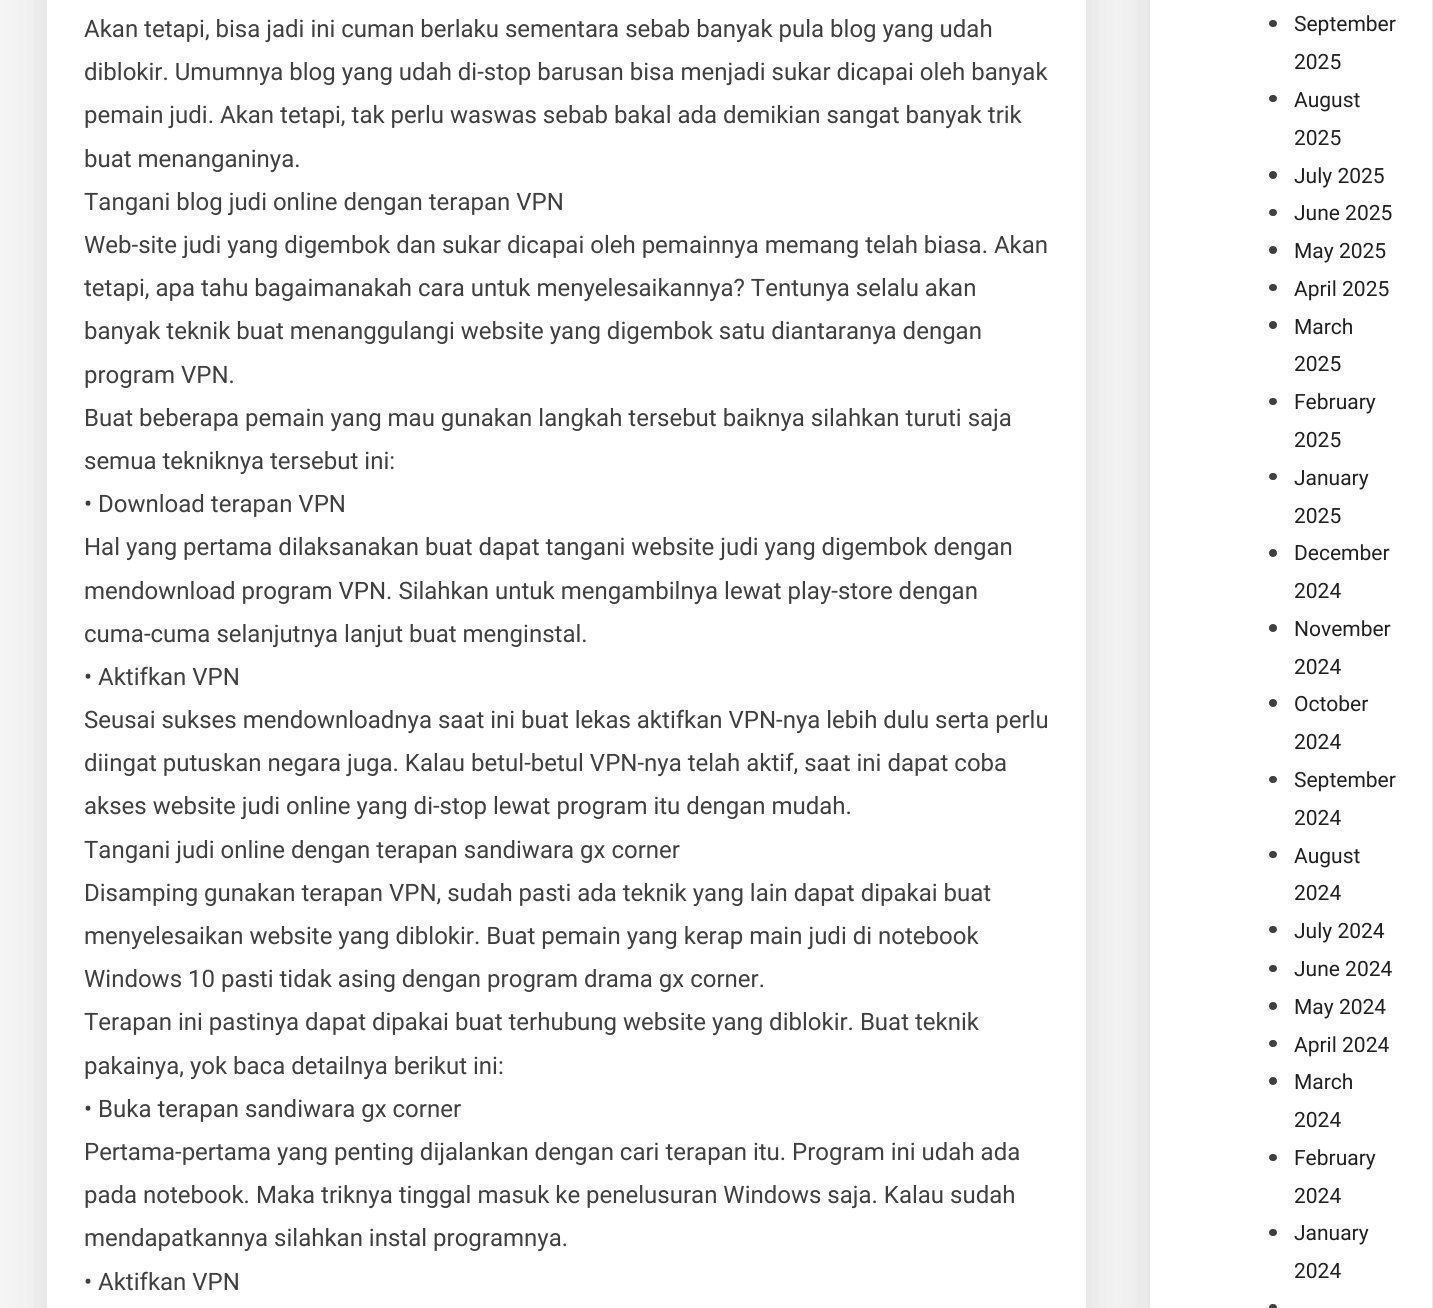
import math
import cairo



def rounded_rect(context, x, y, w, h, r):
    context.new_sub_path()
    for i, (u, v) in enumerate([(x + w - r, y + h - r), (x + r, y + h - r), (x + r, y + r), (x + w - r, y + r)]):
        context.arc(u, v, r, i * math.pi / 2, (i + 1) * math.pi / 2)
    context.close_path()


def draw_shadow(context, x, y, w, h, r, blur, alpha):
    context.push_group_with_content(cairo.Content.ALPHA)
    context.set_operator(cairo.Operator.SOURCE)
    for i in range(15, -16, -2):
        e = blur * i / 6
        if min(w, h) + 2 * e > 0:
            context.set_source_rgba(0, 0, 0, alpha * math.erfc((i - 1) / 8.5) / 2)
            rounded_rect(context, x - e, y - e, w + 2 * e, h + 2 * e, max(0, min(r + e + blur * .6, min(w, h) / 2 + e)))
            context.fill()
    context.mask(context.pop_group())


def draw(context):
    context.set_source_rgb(245 / 255, 245 / 255, 245 / 255)
    context.paint()
    context.set_source_rgb(0, 0, 0)
    draw_shadow(context, 45, -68, 1043, 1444, 0, 22.5, 0.1)
    context.set_source_rgb(1, 1, 1)
    context.rectangle(47, 0, 1039, 1308)
    context.fill()
    context.set_source_rgb(0, 0, 0)
    draw_shadow(context, 1148, -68, 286, 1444, 0, 22.5, 0.1)
    context.set_source_rgb(1, 1, 1)
    context.rectangle(1150, 0, 282, 1308)
    context.fill()
    context.set_source_rgb(64 / 255, 64 / 255, 64 / 255)
    rounded_rect(context, 1269, 20, 8, 7, 3.5)
    context.fill()
    rounded_rect(context, 1269, 95, 8, 7, 3.5)
    context.fill()
    context.arc(1273, 175, 4, 0, 2 * math.pi)
    context.fill()
    rounded_rect(context, 1269, 209, 8, 7, 3.5)
    context.fill()
    context.arc(1273, 250, 4, 0, 2 * math.pi)
    context.fill()
    rounded_rect(context, 1269, 284, 8, 7, 3.5)
    context.fill()
    context.arc(1273, 325, 4, 0, 2 * math.pi)
    context.fill()
    rounded_rect(context, 1269, 398, 8, 7, 3.5)
    context.fill()
    rounded_rect(context, 1269, 473, 8, 7, 3.5)
    context.fill()
    context.arc(1273, 553, 4, 0, 2 * math.pi)
    context.fill()
    context.arc(1273, 628, 4, 0, 2 * math.pi)
    context.fill()
    context.arc(1273, 703, 4, 0, 2 * math.pi)
    context.fill()
    rounded_rect(context, 1269, 776, 8, 7, 3.5)
    context.fill()
    rounded_rect(context, 1269, 851, 8, 7, 3.5)
    context.fill()
    rounded_rect(context, 1269, 926, 8, 7, 3.5)
    context.fill()
    rounded_rect(context, 1269, 965, 8, 7, 3.5)
    context.fill()
    context.arc(1273, 1006, 4, 0, 2 * math.pi)
    context.fill()
    rounded_rect(context, 1269, 1040, 8, 7, 3.5)
    context.fill()
    context.arc(1273, 1081, 4, 0, 2 * math.pi)
    context.fill()
    rounded_rect(context, 1269, 1154, 8, 7, 3.5)
    context.fill()
    rounded_rect(context, 1269, 1229, 8, 7, 3.5)
    context.fill()
    rounded_rect(context, 1269, 1304, 8, 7, 3.5)
    context.fill()
    context.select_font_face("Roboto")
    context.set_font_size(24)
    context.move_to(84, 37)
    context.show_text("Akan tetapi, bisa jadi ini cuman berlaku sementara sebab banyak pula blog yang udah")
    context.move_to(84, 80)
    context.show_text("diblokir. Umumnya blog yang udah di-stop barusan bisa menjadi sukar dicapai oleh banyak")
    context.move_to(84, 123)
    context.show_text("pemain judi. Akan tetapi, tak perlu waswas sebab bakal ada demikian sangat banyak trik")
    context.move_to(84, 167)
    context.show_text("buat menanganinya.")
    context.move_to(84, 210)
    context.show_text("Tangani blog judi online dengan terapan VPN")
    context.move_to(84, 253)
    context.show_text("Web-site judi yang digembok dan sukar dicapai oleh pemainnya memang telah biasa. Akan")
    context.move_to(84, 296)
    context.show_text("tetapi, apa tahu bagaimanakah cara untuk menyelesaikannya? Tentunya selalu akan")
    context.move_to(84, 339)
    context.show_text("banyak teknik buat menanggulangi website yang digembok satu diantaranya dengan")
    context.move_to(84, 383)
    context.show_text("program VPN.")
    context.move_to(84, 426)
    context.show_text("Buat beberapa pemain yang mau gunakan langkah tersebut baiknya silahkan turuti saja")
    context.move_to(84, 469)
    context.show_text("semua tekniknya tersebut ini:")
    context.move_to(84, 512)
    context.show_text("• Download terapan VPN")
    context.move_to(84, 555)
    context.show_text("Hal yang pertama dilaksanakan buat dapat tangani website judi yang digembok dengan")
    context.move_to(84, 599)
    context.show_text("mendownload program VPN. Silahkan untuk mengambilnya lewat play-store dengan")
    context.move_to(84, 642)
    context.show_text("cuma-cuma selanjutnya lanjut buat menginstal.")
    context.move_to(84, 685)
    context.show_text("• Aktifkan VPN")
    context.move_to(84, 728)
    context.show_text("Seusai sukses mendownloadnya saat ini buat lekas aktifkan VPN-nya lebih dulu serta perlu")
    context.move_to(84, 771)
    context.show_text("diingat putuskan negara juga. Kalau betul-betul VPN-nya telah aktif, saat ini dapat coba")
    context.move_to(84, 814)
    context.show_text("akses website judi online yang di-stop lewat program itu dengan mudah.")
    context.move_to(84, 858)
    context.show_text("Tangani judi online dengan terapan sandiwara gx corner")
    context.move_to(84, 901)
    context.show_text("Disamping gunakan terapan VPN, sudah pasti ada teknik yang lain dapat dipakai buat")
    context.move_to(84, 944)
    context.show_text("menyelesaikan website yang diblokir. Buat pemain yang kerap main judi di notebook")
    context.move_to(84, 987)
    context.show_text("Windows 10 pasti tidak asing dengan program drama gx corner.")
    context.move_to(84, 1030)
    context.show_text("Terapan ini pastinya dapat dipakai buat terhubung website yang diblokir. Buat teknik")
    context.move_to(84, 1074)
    context.show_text("pakainya, yok baca detailnya berikut ini:")
    context.move_to(84, 1117)
    context.show_text("• Buka terapan sandiwara gx corner")
    context.move_to(84, 1160)
    context.show_text("Pertama-pertama yang penting dijalankan dengan cari terapan itu. Program ini udah ada")
    context.move_to(84, 1203)
    context.show_text("pada notebook. Maka triknya tinggal masuk ke penelusuran Windows saja. Kalau sudah")
    context.move_to(84, 1246)
    context.show_text("mendapatkannya silahkan instal programnya.")
    context.move_to(84, 1290)
    context.show_text("• Aktifkan VPN")
    context.set_font_size(21)
    context.set_source_rgb(33 / 255, 33 / 255, 33 / 255)
    context.move_to(1294, 31)
    context.show_text("September")
    context.move_to(1294, 69)
    context.show_text("2025")
    context.move_to(1294, 107)
    context.show_text("August")
    context.move_to(1294, 145)
    context.show_text("2025")
    context.move_to(1294, 183)
    context.show_text("July 2025")
    context.move_to(1294, 220)
    context.show_text("June 2025")
    context.move_to(1294, 258)
    context.show_text("May 2025")
    context.move_to(1294, 296)
    context.show_text("April 2025")
    context.move_to(1294, 334)
    context.show_text("March")
    context.move_to(1294, 371)
    context.show_text("2025")
    context.move_to(1294, 409)
    context.show_text("February")
    context.move_to(1294, 447)
    context.show_text("2025")
    context.move_to(1294, 485)
    context.show_text("January")
    context.move_to(1294, 523)
    context.show_text("2025")
    context.move_to(1294, 560)
    context.show_text("December")
    context.move_to(1294, 598)
    context.show_text("2024")
    context.move_to(1294, 636)
    context.show_text("November")
    context.move_to(1294, 674)
    context.show_text("2024")
    context.move_to(1294, 711)
    context.show_text("October")
    context.move_to(1294, 749)
    context.show_text("2024")
    context.move_to(1294, 787)
    context.show_text("September")
    context.move_to(1294, 825)
    context.show_text("2024")
    context.move_to(1294, 863)
    context.show_text("August")
    context.move_to(1294, 900)
    context.show_text("2024")
    context.move_to(1294, 938)
    context.show_text("July 2024")
    context.move_to(1294, 976)
    context.show_text("June 2024")
    context.move_to(1294, 1014)
    context.show_text("May 2024")
    context.move_to(1294, 1052)
    context.show_text("April 2024")
    context.move_to(1294, 1089)
    context.show_text("March")
    context.move_to(1294, 1127)
    context.show_text("2024")
    context.move_to(1294, 1165)
    context.show_text("February")
    context.move_to(1294, 1203)
    context.show_text("2024")
    context.move_to(1294, 1240)
    context.show_text("January")
    context.move_to(1294, 1278)
    context.show_text("2024")


surface = cairo.ImageSurface(cairo.Format.RGB24, 1433, 1308)
context = cairo.Context(surface)
options = cairo.FontOptions()
options.set_hint_metrics(cairo.HintMetrics.OFF)
options.set_hint_style(cairo.HintStyle.NONE)
context.set_font_options(options)
context.set_miter_limit(4)
draw(context)
surface.write_to_png("out.png")
